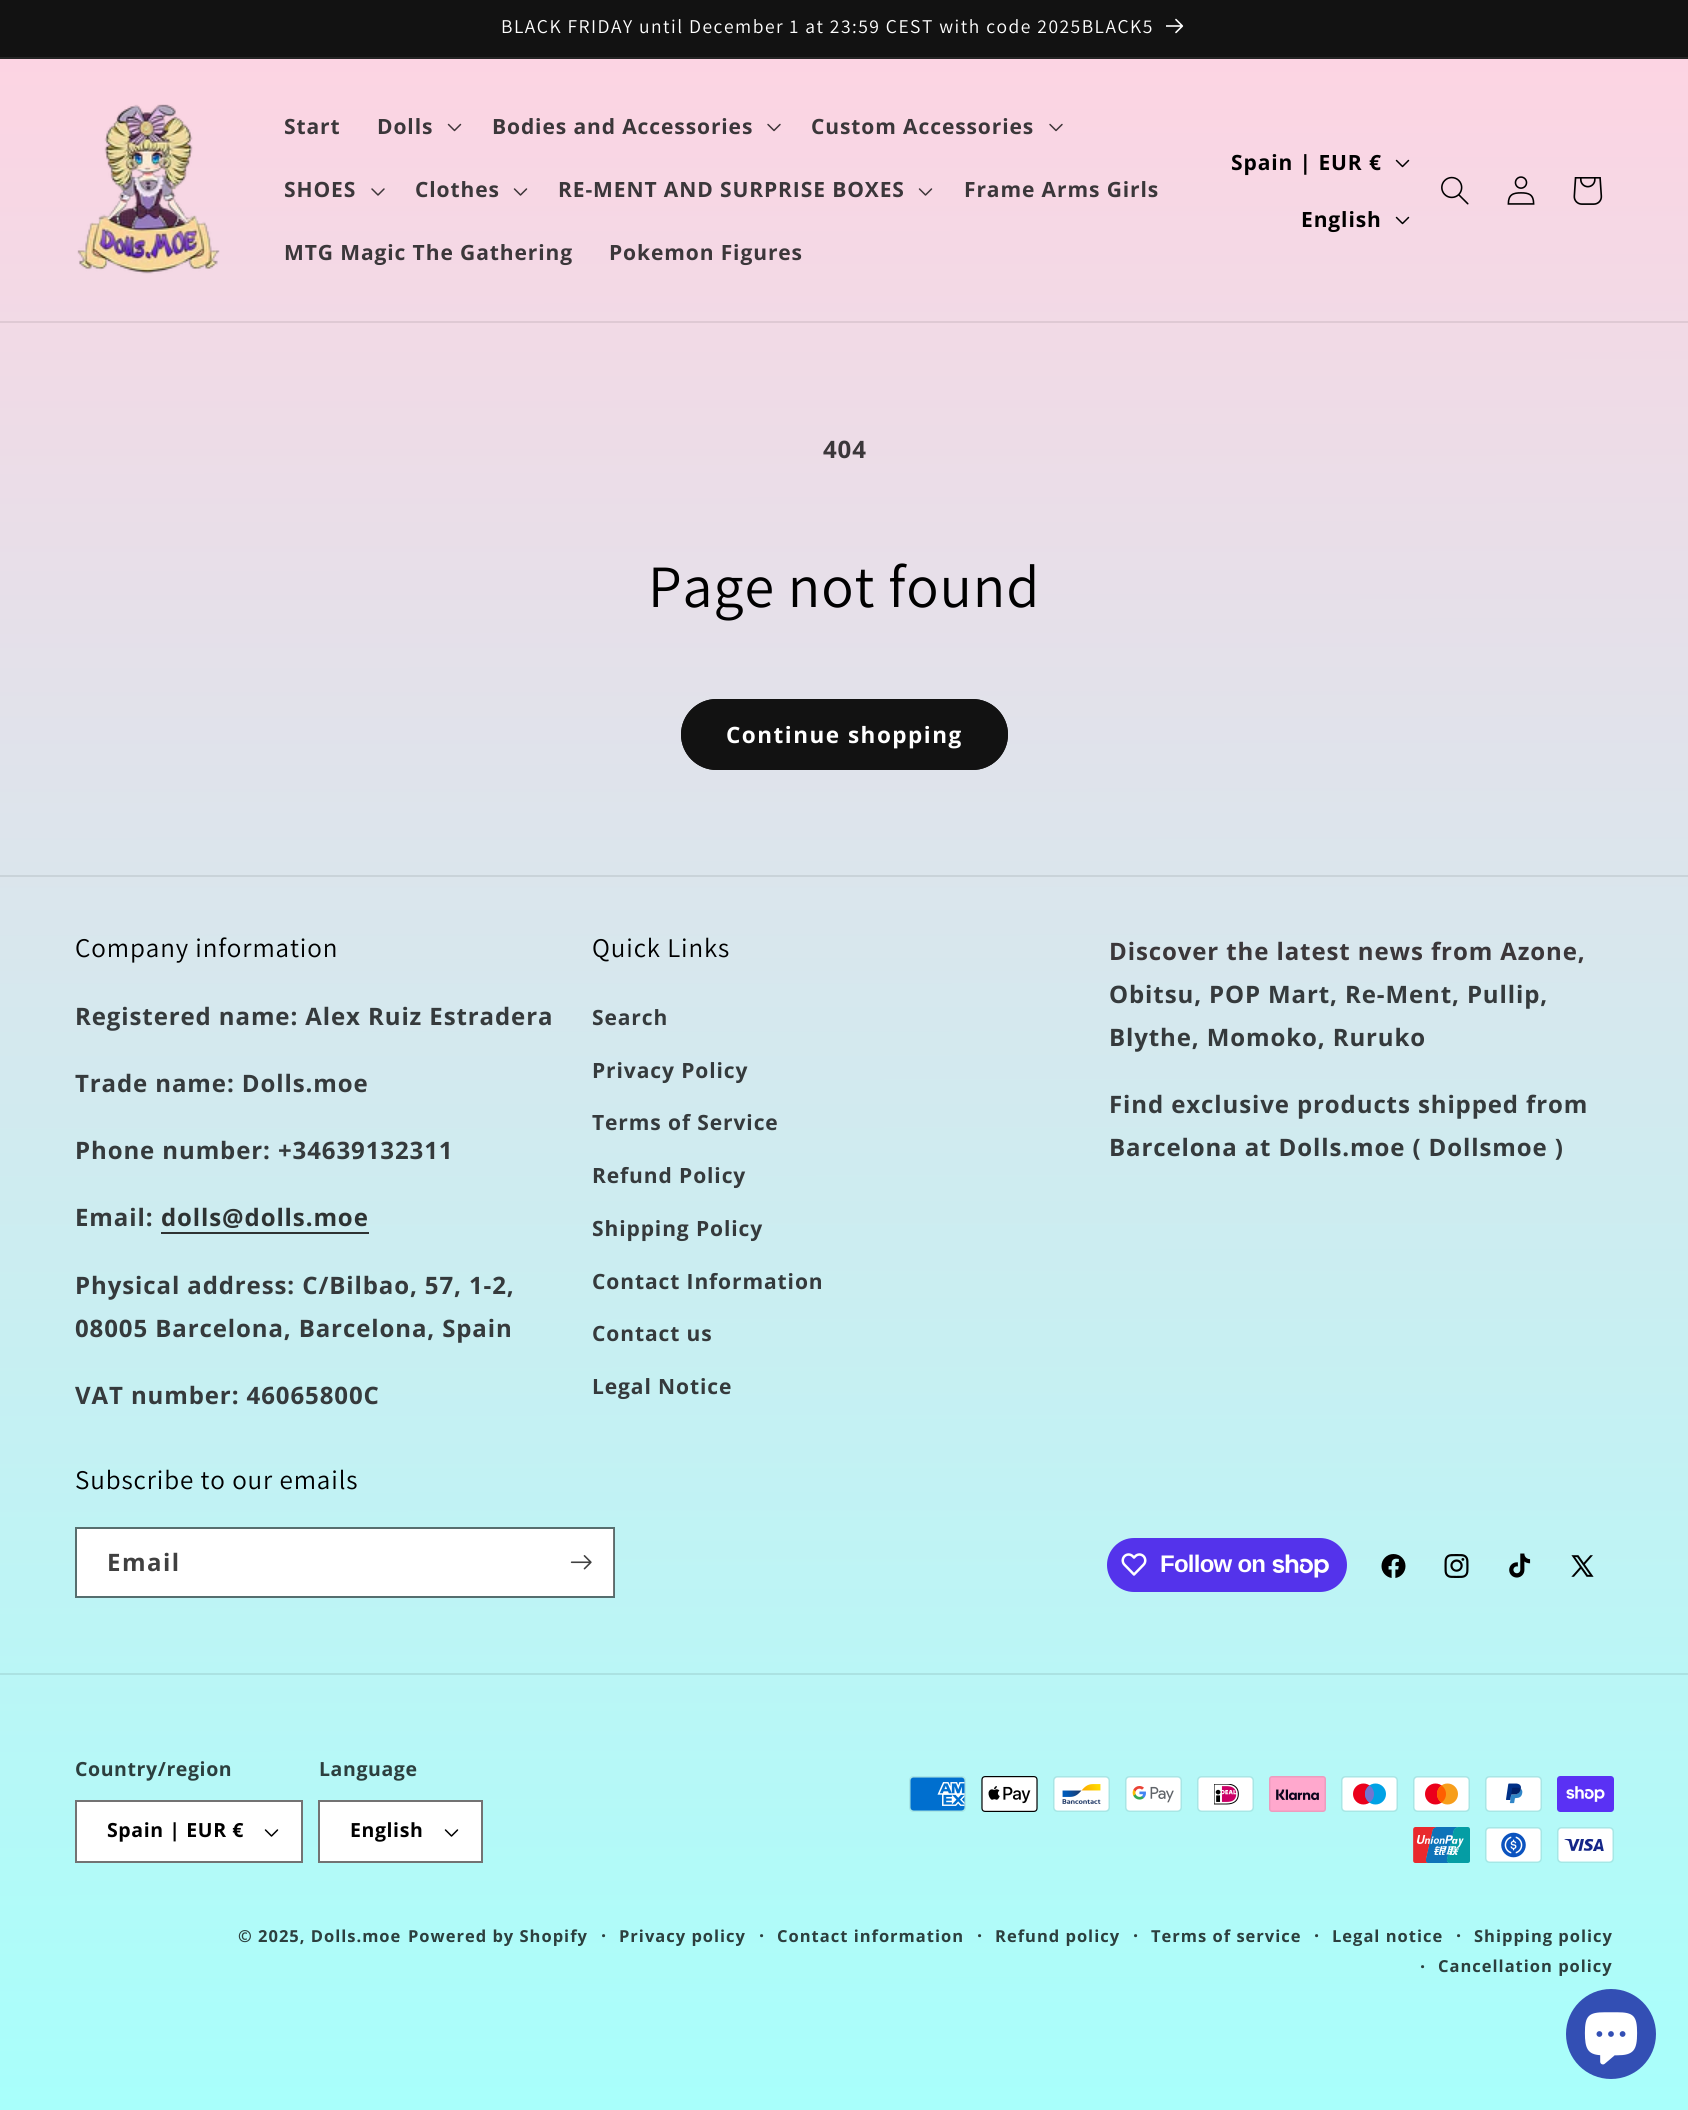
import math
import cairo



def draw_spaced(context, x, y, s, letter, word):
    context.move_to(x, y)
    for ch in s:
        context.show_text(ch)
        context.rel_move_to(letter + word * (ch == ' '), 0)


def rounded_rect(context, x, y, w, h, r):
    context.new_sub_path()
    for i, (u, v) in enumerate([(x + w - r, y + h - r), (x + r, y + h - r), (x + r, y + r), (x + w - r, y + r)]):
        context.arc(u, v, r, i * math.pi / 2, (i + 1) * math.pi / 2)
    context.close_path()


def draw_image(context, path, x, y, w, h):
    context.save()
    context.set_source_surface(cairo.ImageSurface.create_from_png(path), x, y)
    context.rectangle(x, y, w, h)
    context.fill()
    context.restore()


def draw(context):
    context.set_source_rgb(1, 1, 1)
    context.paint()
    gradient = cairo.LinearGradient(844, 0, 845, 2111)
    gradient.add_color_stop_rgba(0, 1, 211 / 255, 226 / 255, 1)
    gradient.add_color_stop_rgba(1, 168 / 255, 1, 251 / 255, 1)
    context.set_source(gradient)
    context.rectangle(0, 59, 1688, 2051)
    context.fill()
    context.set_source_rgb(18 / 255, 18 / 255, 18 / 255)
    context.rectangle(0, 0, 1688, 57)
    context.fill()
    context.set_source_rgb(37 / 255, 37 / 255, 37 / 255)
    context.rectangle(0, 57, 1688, 2)
    context.fill()
    draw_image(context, "images/1.png", 1166, 18, 18, 16)
    context.set_source_rgb(223 / 255, 201 / 255, 212 / 255)
    context.rectangle(0, 321, 1688, 2)
    context.fill()
    draw_image(context, "images/2.png", 77, 104, 143, 170)
    draw_image(context, "images/3.png", 447, 123, 15, 9)
    draw_image(context, "images/4.png", 767, 123, 14, 9)
    draw_image(context, "images/4.png", 1049, 123, 14, 9)
    draw_image(context, "images/5.png", 371, 188, 14, 8)
    draw_image(context, "images/6.png", 513, 188, 15, 8)
    draw_image(context, "images/6.png", 918, 188, 15, 8)
    draw_image(context, "images/7.png", 1395, 159, 15, 9)
    draw_image(context, "images/8.png", 1395, 216, 15, 9)
    draw_image(context, "images/9.png", 1441, 176, 28, 29)
    draw_image(context, "images/10.png", 1507, 176, 28, 29)
    draw_image(context, "images/11.png", 1573, 177, 30, 28)
    context.set_source_rgb(18 / 255, 18 / 255, 18 / 255)
    rounded_rect(context, 681, 699, 327, 71, 35.5)
    context.fill()
    rounded_rect(context, 682, 700, 325, 69, 34.5)
    context.stroke()
    context.set_source_rgb(201 / 255, 211 / 255, 217 / 255)
    context.rectangle(0, 875, 1688, 2)
    context.fill()
    context.set_source_rgb(46 / 255, 51 / 255, 51 / 255)
    context.rectangle(161, 1232, 208, 2)
    context.fill()
    context.set_source_rgb(1, 1, 1)
    context.rectangle(77, 1529, 537, 67)
    context.fill()
    context.rectangle(76, 1528, 538, 69)
    context.set_source_rgba(0, 0, 0, 0.55)
    context.stroke()
    draw_image(context, "images/12.png", 570, 1555, 22, 15)
    context.set_source_rgb(84 / 255, 51 / 255, 235 / 255)
    rounded_rect(context, 1107, 1538, 240, 54, 27)
    context.fill()
    draw_image(context, "images/13.png", 1121, 1553, 26, 23)
    draw_image(context, "images/14.png", 1272, 1554, 57, 24)
    draw_image(context, "images/15.png", 1381, 1554, 25, 24)
    draw_image(context, "images/16.png", 1444, 1554, 25, 24)
    draw_image(context, "images/17.png", 1509, 1553, 22, 25)
    draw_image(context, "images/18.png", 1571, 1555, 23, 22)
    context.set_source_rgb(171 / 255, 226 / 255, 226 / 255)
    context.rectangle(0, 1673, 1688, 2)
    context.fill()
    context.set_source_rgb(1, 1, 1)
    context.rectangle(77, 1802, 224, 59)
    context.fill()
    draw_image(context, "images/19.png", 264, 1829, 15, 8)
    context.rectangle(76, 1801, 226, 61)
    context.set_source_rgb(115 / 255, 115 / 255, 115 / 255)
    context.stroke()
    context.set_source_rgb(1, 1, 1)
    context.rectangle(320, 1802, 161, 59)
    context.fill()
    draw_image(context, "images/19.png", 444, 1829, 15, 8)
    context.rectangle(319, 1801, 163, 61)
    context.set_source_rgb(115 / 255, 115 / 255, 115 / 255)
    context.stroke()
    draw_image(context, "images/20.png", 909, 1776, 57, 36)
    draw_image(context, "images/21.png", 981, 1776, 57, 36)
    draw_image(context, "images/22.png", 1053, 1776, 57, 36)
    draw_image(context, "images/23.png", 1125, 1776, 57, 36)
    draw_image(context, "images/24.png", 1197, 1776, 57, 36)
    draw_image(context, "images/25.png", 1269, 1776, 57, 36)
    draw_image(context, "images/26.png", 1341, 1776, 57, 36)
    draw_image(context, "images/27.png", 1413, 1776, 57, 36)
    draw_image(context, "images/28.png", 1485, 1776, 57, 36)
    draw_image(context, "images/29.png", 1557, 1776, 57, 36)
    draw_image(context, "images/30.png", 1413, 1827, 57, 36)
    draw_image(context, "images/31.png", 1485, 1827, 57, 36)
    draw_image(context, "images/32.png", 1557, 1827, 57, 36)
    context.set_source_rgb(51 / 255, 79 / 255, 180 / 255)
    context.arc(1611, 2034, 45, 0, 2 * math.pi)
    context.fill()
    draw_image(context, "images/33.png", 1584, 2012, 54, 53)
    context.select_font_face("Assistant")
    context.set_font_size(19.5)
    context.set_source_rgb(1, 1, 1)
    draw_spaced(context, 501, 33, "BLACK FRIDAY until December 1 at 23:59 CEST with code 2025BLACK5", 1.5, 0)
    context.select_font_face("Open Sans", cairo.FontSlant.NORMAL, cairo.FontWeight.BOLD)
    context.set_font_size(21)
    context.set_source_rgb(59 / 255, 55 / 255, 58 / 255)
    draw_spaced(context, 284, 134, "Start", 0.9, 0)
    draw_spaced(context, 377, 134, "Dolls", 0.9, 0)
    draw_spaced(context, 492, 134, "Bodies and Accessories", 0.9, 0)
    draw_spaced(context, 811, 134, "Custom Accessories", 0.9, 0)
    draw_spaced(context, 284, 197, "SHOES", 0.9, 0)
    draw_spaced(context, 415, 197, "Clothes", 0.9, 0)
    draw_spaced(context, 558, 197, "RE-MENT AND SURPRISE BOXES", 0.9, 0)
    draw_spaced(context, 964, 197, "Frame Arms Girls", 0.9, 0)
    draw_spaced(context, 284, 260, "MTG Magic The Gathering", 0.9, 0)
    draw_spaced(context, 609, 260, "Pokemon Figures", 0.9, 0)
    context.set_source_rgb(0, 0, 0)
    draw_spaced(context, 1231, 170, "Spain | EUR €", 0.9, 0)
    draw_spaced(context, 1301, 227, "English", 0.9, 0)
    context.set_font_size(24)
    context.set_source_rgb(59 / 255, 55 / 255, 58 / 255)
    draw_spaced(context, 823, 458, "404", 0.9, 0)
    context.select_font_face("Assistant")
    context.set_font_size(60)
    context.set_source_rgb(0, 0, 0)
    draw_spaced(context, 648, 607, "Page not found", 0.9, 0)
    context.select_font_face("Open Sans", cairo.FontSlant.NORMAL, cairo.FontWeight.BOLD)
    context.set_font_size(22.5)
    context.set_source_rgb(1, 1, 1)
    draw_spaced(context, 726, 743, "Continue shopping", 1.5, 0)
    context.select_font_face("Assistant")
    context.set_font_size(27)
    context.set_source_rgb(0, 0, 0)
    draw_spaced(context, 75, 957, "Company information", 0.9, 0)
    context.select_font_face("Open Sans", cairo.FontSlant.NORMAL, cairo.FontWeight.BOLD)
    context.set_font_size(24)
    context.set_source_rgb(53 / 255, 58 / 255, 60 / 255)
    draw_spaced(context, 75, 1025, "Registered name: Alex Ruiz Estradera", 0.9, 0)
    draw_spaced(context, 75, 1092, "Trade name: Dolls.moe", 0.9, 0)
    draw_spaced(context, 75, 1159, "Phone number: +34639132311", 0.9, 0)
    draw_spaced(context, 75, 1226, "Email:", 0.9, 0)
    context.set_source_rgb(46 / 255, 51 / 255, 51 / 255)
    draw_spaced(context, 161, 1226, "dolls@dolls.moe", 0.9, 0)
    context.set_source_rgb(53 / 255, 58 / 255, 60 / 255)
    draw_spaced(context, 75, 1294, "Physical address: C/Bilbao, 57, 1-2,", 0.9, 0)
    draw_spaced(context, 75, 1337, "08005 Barcelona, Barcelona, Spain", 0.9, 0)
    draw_spaced(context, 75, 1404, "VAT number: 46065800C", 0.9, 0)
    context.select_font_face("Assistant")
    context.set_font_size(27)
    context.set_source_rgb(0, 0, 0)
    draw_spaced(context, 592, 957, "Quick Links", 0.9, 0)
    context.select_font_face("Open Sans", cairo.FontSlant.NORMAL, cairo.FontWeight.BOLD)
    context.set_font_size(21)
    context.set_source_rgb(53 / 255, 58 / 255, 60 / 255)
    draw_spaced(context, 592, 1025, "Search", 0.9, 0)
    draw_spaced(context, 592, 1078, "Privacy Policy", 0.9, 0)
    draw_spaced(context, 592, 1130, "Terms of Service", 0.9, 0)
    draw_spaced(context, 592, 1183, "Refund Policy", 0.9, 0)
    draw_spaced(context, 592, 1236, "Shipping Policy", 0.9, 0)
    draw_spaced(context, 592, 1289, "Contact Information", 0.9, 0)
    draw_spaced(context, 592, 1341, "Contact us", 0.9, 0)
    draw_spaced(context, 592, 1394, "Legal Notice", 0.9, 0)
    context.set_font_size(24)
    context.set_source_rgb(59 / 255, 55 / 255, 58 / 255)
    draw_spaced(context, 1109, 960, "Discover the latest news from Azone,", 0.9, 0)
    context.set_source_rgb(53 / 255, 58 / 255, 60 / 255)
    draw_spaced(context, 1109, 1003, "Obitsu, POP Mart, Re-Ment, Pullip,", 0.9, 0)
    draw_spaced(context, 1109, 1046, "Blythe, Momoko, Ruruko", 0.9, 0)
    draw_spaced(context, 1109, 1113, "Find exclusive products shipped from", 0.9, 0)
    draw_spaced(context, 1109, 1156, "Barcelona at Dolls.moe ( Dollsmoe )", 0.9, 0)
    context.select_font_face("Assistant")
    context.set_font_size(27)
    context.set_source_rgb(0, 0, 0)
    draw_spaced(context, 75, 1489, "Subscribe to our emails", 0.9, 0)
    context.select_font_face("Open Sans", cairo.FontSlant.NORMAL, cairo.FontWeight.BOLD)
    context.set_font_size(24)
    context.set_source_rgb(64 / 255, 64 / 255, 64 / 255)
    draw_spaced(context, 107, 1571, "Email", 1.5, 0)
    context.select_font_face("Liberation Sans", cairo.FontSlant.NORMAL, cairo.FontWeight.BOLD)
    context.set_source_rgb(1, 1, 1)
    draw_spaced(context, 1160, 1572, "Follow on", -0.75, 0)
    context.select_font_face("Open Sans", cairo.FontSlant.NORMAL, cairo.FontWeight.BOLD)
    context.set_font_size(19.5)
    context.set_source_rgb(44 / 255, 63 / 255, 62 / 255)
    draw_spaced(context, 75, 1776, "Country/region", 0.6, 0)
    context.set_source_rgb(0, 0, 0)
    draw_spaced(context, 107, 1837, "Spain | EUR €", 0.6, 0)
    context.set_source_rgb(44 / 255, 63 / 255, 62 / 255)
    draw_spaced(context, 319, 1776, "Language", 0.6, 0)
    context.set_source_rgb(0, 0, 0)
    draw_spaced(context, 350, 1837, "English", 0.6, 0)
    context.set_font_size(16.5)
    context.set_source_rgb(44 / 255, 63 / 255, 62 / 255)
    draw_spaced(context, 238, 1942, "© 2025, Dolls.moe", 1, 0)
    draw_spaced(context, 408, 1942, "Powered by Shopify", 1, 0)
    context.set_font_size(18)
    draw_spaced(context, 601, 1942, "·", 1, 0)
    context.set_font_size(16.5)
    draw_spaced(context, 619, 1942, "Privacy policy", 1, 0)
    context.set_font_size(18)
    draw_spaced(context, 759, 1942, "·", 1, 0)
    context.set_font_size(16.5)
    draw_spaced(context, 777, 1942, "Contact information", 1, 0)
    context.set_font_size(18)
    draw_spaced(context, 977, 1942, "·", 1, 0)
    context.set_font_size(16.5)
    draw_spaced(context, 995, 1942, "Refund policy", 1, 0)
    context.set_font_size(18)
    draw_spaced(context, 1133, 1942, "·", 1, 0)
    context.set_font_size(16.5)
    draw_spaced(context, 1151, 1942, "Terms of service", 1, 0)
    context.set_font_size(18)
    draw_spaced(context, 1314, 1942, "·", 1, 0)
    context.set_font_size(16.5)
    draw_spaced(context, 1332, 1942, "Legal notice", 1, 0)
    context.set_font_size(18)
    draw_spaced(context, 1456, 1942, "·", 1, 0)
    context.set_font_size(16.5)
    draw_spaced(context, 1474, 1942, "Shipping policy", 1, 0)
    context.set_font_size(18)
    draw_spaced(context, 1420, 1973, "·", 1, 0)
    context.set_font_size(16.5)
    draw_spaced(context, 1438, 1972, "Cancellation policy", 1, 0)


surface = cairo.ImageSurface(cairo.Format.RGB24, 1688, 2110)
context = cairo.Context(surface)
options = cairo.FontOptions()
options.set_hint_metrics(cairo.HintMetrics.OFF)
options.set_hint_style(cairo.HintStyle.NONE)
context.set_font_options(options)
context.set_miter_limit(4)
draw(context)
surface.write_to_png("out.png")
